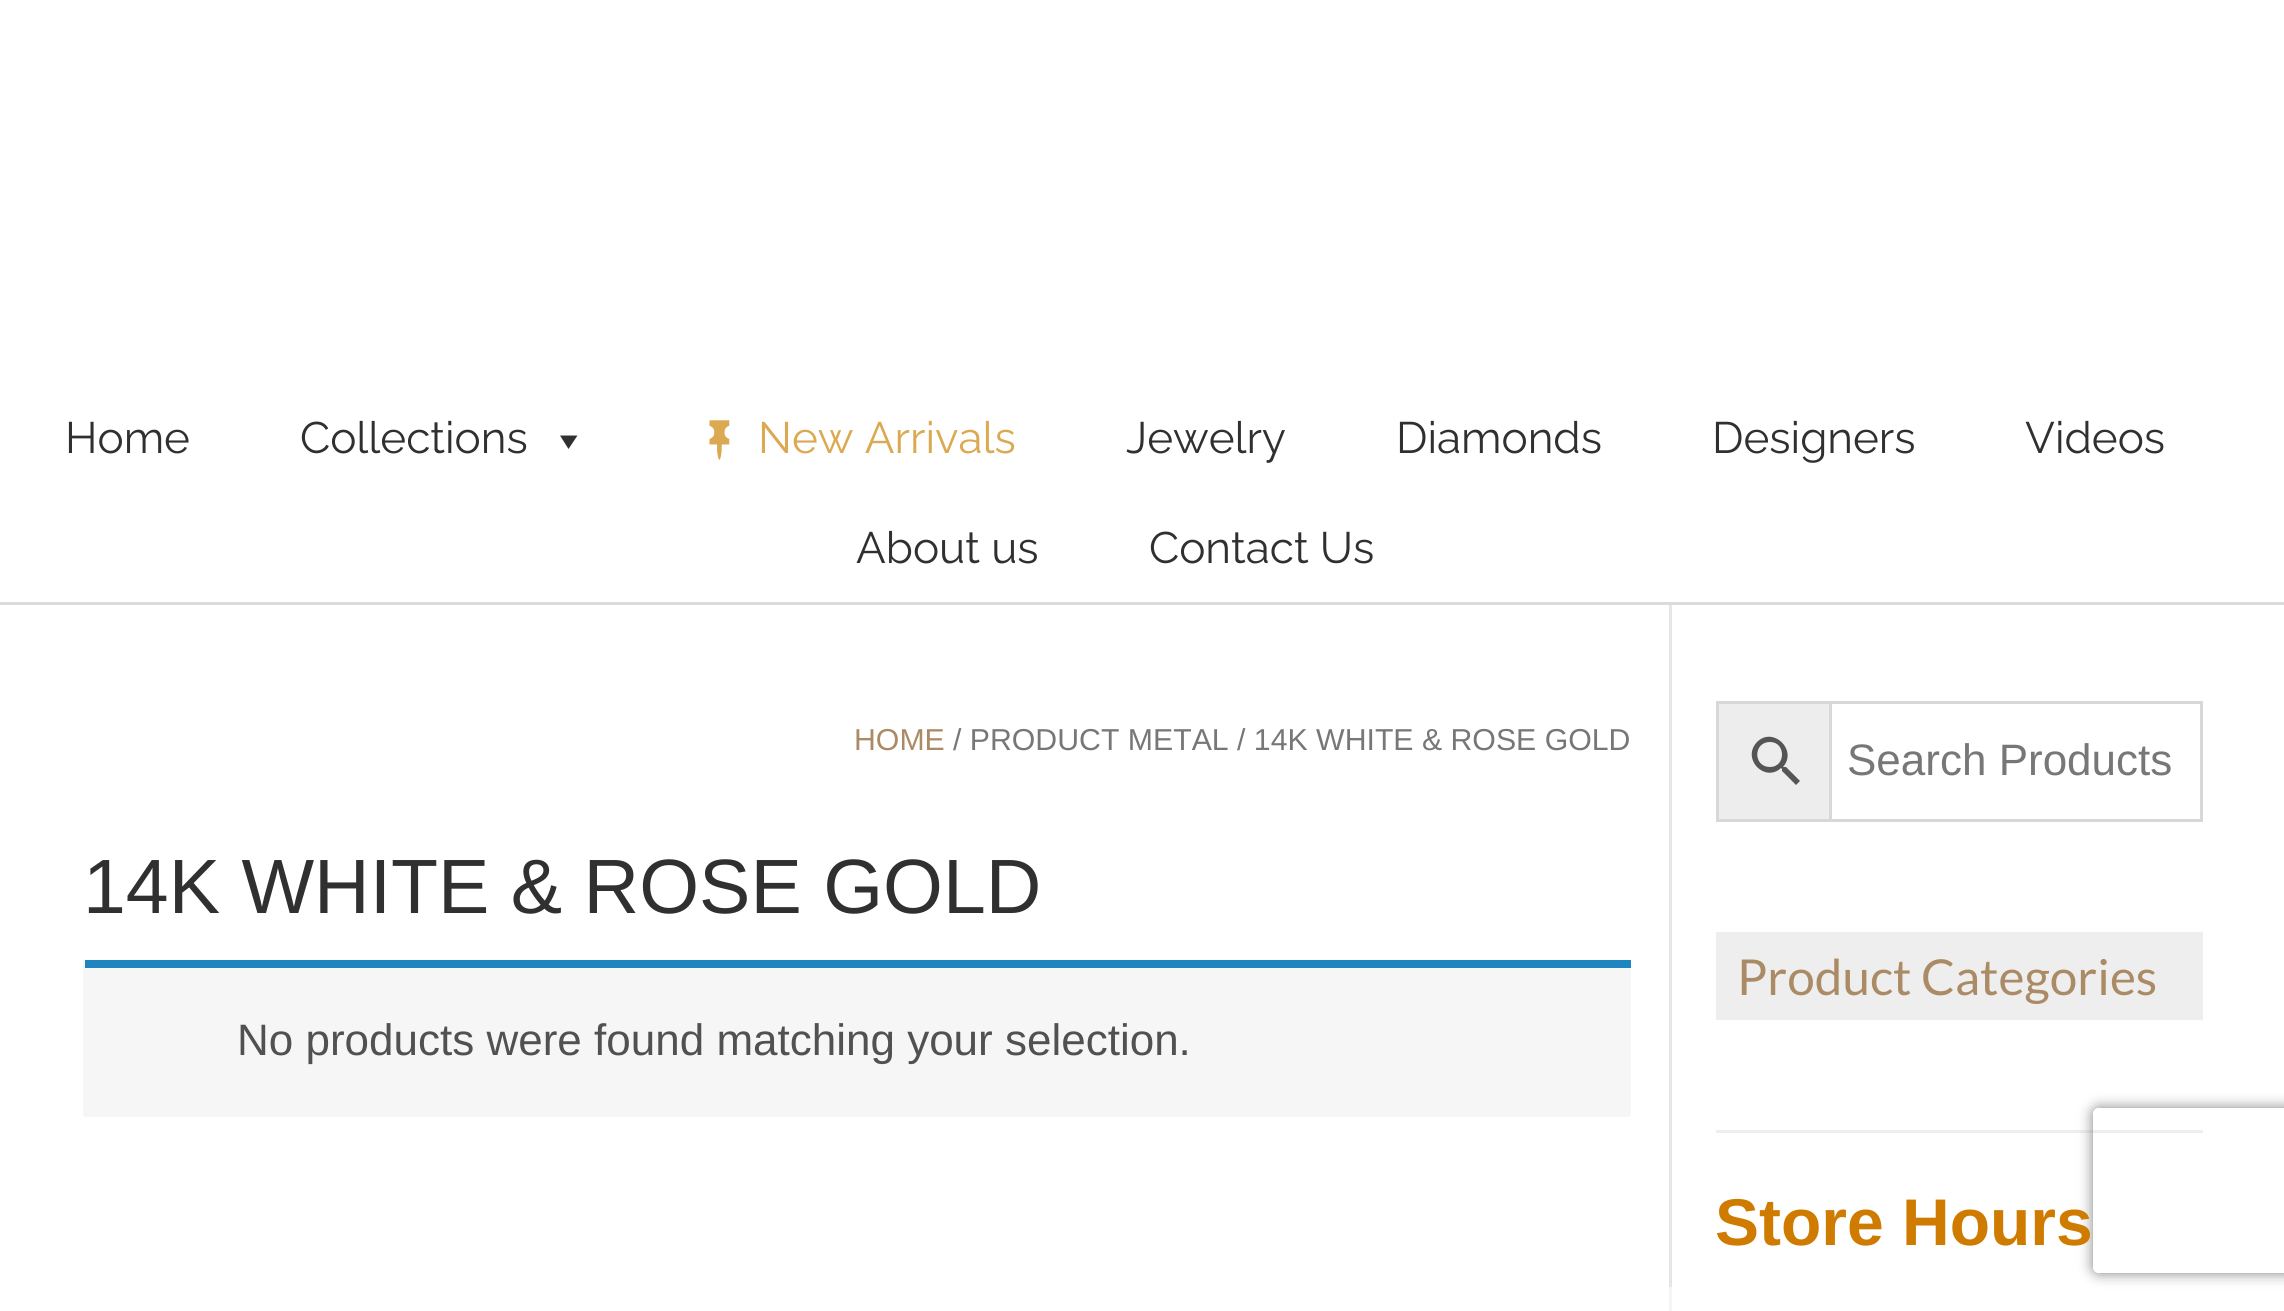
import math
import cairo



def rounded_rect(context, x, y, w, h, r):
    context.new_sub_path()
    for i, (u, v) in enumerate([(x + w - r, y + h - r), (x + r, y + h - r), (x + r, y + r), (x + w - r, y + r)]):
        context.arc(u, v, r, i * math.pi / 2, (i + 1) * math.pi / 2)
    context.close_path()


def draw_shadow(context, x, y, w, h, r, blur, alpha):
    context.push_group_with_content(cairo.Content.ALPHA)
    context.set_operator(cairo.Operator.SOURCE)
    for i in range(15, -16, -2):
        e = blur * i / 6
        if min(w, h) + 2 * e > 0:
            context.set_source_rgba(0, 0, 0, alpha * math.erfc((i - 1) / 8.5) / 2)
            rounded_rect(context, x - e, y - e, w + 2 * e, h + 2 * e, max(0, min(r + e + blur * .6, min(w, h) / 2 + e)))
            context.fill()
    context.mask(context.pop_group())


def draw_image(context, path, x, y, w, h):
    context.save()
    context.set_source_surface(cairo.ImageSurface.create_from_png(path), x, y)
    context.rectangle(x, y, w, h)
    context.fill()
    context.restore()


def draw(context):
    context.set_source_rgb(1, 1, 1)
    context.paint()
    context.set_source_rgb(219 / 255, 219 / 255, 219 / 255)
    context.rectangle(0, 602, 2284, 3)
    context.fill()
    context.set_source_rgb(48 / 255, 48 / 255, 48 / 255)
    context.new_path()
    context.move_to(577.5, 435.5)
    context.line_to(568.5, 449)
    context.line_to(560, 435.5)
    context.close_path()
    context.fill()
    draw_image(context, "images/1.png", 709, 420, 21, 40)
    context.set_source_rgb(245 / 255, 245 / 255, 245 / 255)
    context.new_path()
    context.move_to(1669, 605)
    context.line_to(1669, 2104)
    context.line_to(2200, 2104)
    context.line_to(1672, 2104)
    context.line_to(1672, 605)
    context.close_path()
    context.fill()
    context.set_source_rgb(230 / 255, 230 / 255, 230 / 255)
    context.rectangle(1669, 605, 3, 682)
    context.fill()
    context.set_source_rgb(246 / 255, 246 / 255, 246 / 255)
    rounded_rect(context, 83, 960, 1548, 157, 3)
    context.fill()
    context.set_source_rgb(30 / 255, 133 / 255, 190 / 255)
    context.rectangle(85, 960, 1546, 8)
    context.fill()
    context.set_source_rgb(237 / 255, 237 / 255, 237 / 255)
    context.rectangle(1717.5, 702.5, 113, 118)
    context.fill_preserve()
    context.set_source_rgb(216 / 255, 216 / 255, 216 / 255)
    context.set_line_width(3)
    context.stroke()
    context.set_source_rgb(85 / 255, 85 / 255, 85 / 255)
    context.new_path()
    context.move_to(1786, 767)
    context.line_to(1784, 767)
    context.line_to(1783, 767)
    context.curve_to(1798, 750, 1773, 726, 1757, 742)
    context.curve_to(1741, 759, 1765, 783, 1781, 768)
    context.line_to(1782, 769)
    context.line_to(1782, 771)
    context.line_to(1796, 785)
    context.line_to(1800, 781)
    context.close_path()
    context.move_to(1770, 767)
    context.curve_to(1753, 767, 1753, 742, 1770, 742)
    context.curve_to(1786, 742, 1786, 767, 1770, 767)
    context.close_path()
    context.fill()
    context.rectangle(1830.5, 702.5, 371, 118)
    context.set_source_rgb(216 / 255, 216 / 255, 216 / 255)
    context.stroke()
    context.set_source_rgb(238 / 255, 238 / 255, 238 / 255)
    context.rectangle(1716, 932, 487, 88)
    context.fill()
    context.rectangle(1716, 1130, 487, 3)
    context.fill()
    context.save()
    context.set_fill_rule(cairo.FillRule.EVEN_ODD)
    context.new_path()
    context.move_to(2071, 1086)
    context.line_to(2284, 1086)
    context.line_to(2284, 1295)
    context.line_to(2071, 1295)
    context.close_path()
    context.move_to(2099, 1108)
    context.line_to(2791, 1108)
    context.curve_to(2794.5, 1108, 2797, 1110.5, 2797, 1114)
    context.line_to(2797, 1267)
    context.curve_to(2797, 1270.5, 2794.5, 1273, 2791, 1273)
    context.line_to(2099, 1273)
    context.curve_to(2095.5, 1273, 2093, 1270.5, 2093, 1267)
    context.line_to(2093, 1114)
    context.curve_to(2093, 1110.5, 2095.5, 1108, 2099, 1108)
    context.close_path()
    context.clip()
    context.set_source_rgb(128 / 255, 128 / 255, 128 / 255)
    draw_shadow(context, 2093, 1108, 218, 165, 6, 7, 1)
    context.restore()
    context.select_font_face("Raleway")
    context.set_font_size(44)
    context.set_source_rgb(48 / 255, 48 / 255, 48 / 255)
    context.move_to(65, 453)
    context.show_text("Home")
    context.move_to(300, 453)
    context.show_text("Collections")
    context.set_source_rgb(219 / 255, 169 / 255, 81 / 255)
    context.move_to(758, 453)
    context.show_text("New Arrivals")
    context.set_source_rgb(48 / 255, 48 / 255, 48 / 255)
    context.move_to(1126, 453)
    context.show_text("Jewelry")
    context.move_to(1396, 453)
    context.show_text("Diamonds")
    context.move_to(1712, 453)
    context.show_text("Designers")
    context.move_to(2025, 453)
    context.show_text("Videos")
    context.move_to(856, 563)
    context.show_text("About us")
    context.move_to(1149, 563)
    context.show_text("Contact Us")
    context.select_font_face("Liberation Sans")
    context.set_font_size(30.25)
    context.set_source_rgb(171 / 255, 139 / 255, 101 / 255)
    context.move_to(854, 750)
    context.show_text("HOME")
    context.set_source_rgb(119 / 255, 119 / 255, 119 / 255)
    context.move_to(953, 750)
    context.show_text("/ PRODUCT METAL / 14K WHITE & ROSE GOLD")
    context.set_font_size(77)
    context.set_source_rgb(48 / 255, 48 / 255, 48 / 255)
    context.move_to(83, 913)
    context.show_text("14K WHITE & ROSE GOLD")
    context.set_font_size(44)
    context.set_source_rgb(81 / 255, 81 / 255, 81 / 255)
    context.move_to(237, 1055)
    context.show_text("No products were found matching your selection.")
    context.set_source_rgb(119 / 255, 119 / 255, 119 / 255)
    context.move_to(1847, 775)
    context.show_text("Search Products")
    context.select_font_face("Lato")
    context.set_font_size(49.5)
    context.set_source_rgb(171 / 255, 139 / 255, 101 / 255)
    context.move_to(1737, 995)
    context.show_text("Product Categories")
    context.select_font_face("Liberation Sans", cairo.FontSlant.NORMAL, cairo.FontWeight.BOLD)
    context.set_font_size(66)
    context.set_source_rgb(207 / 255, 123 / 255, 0)
    context.move_to(1715, 1245)
    context.show_text("Store Hours")


surface = cairo.ImageSurface(cairo.Format.RGB24, 2284, 1311)
context = cairo.Context(surface)
options = cairo.FontOptions()
options.set_hint_metrics(cairo.HintMetrics.OFF)
options.set_hint_style(cairo.HintStyle.NONE)
context.set_font_options(options)
context.set_miter_limit(4)
draw(context)
surface.write_to_png("out.png")
